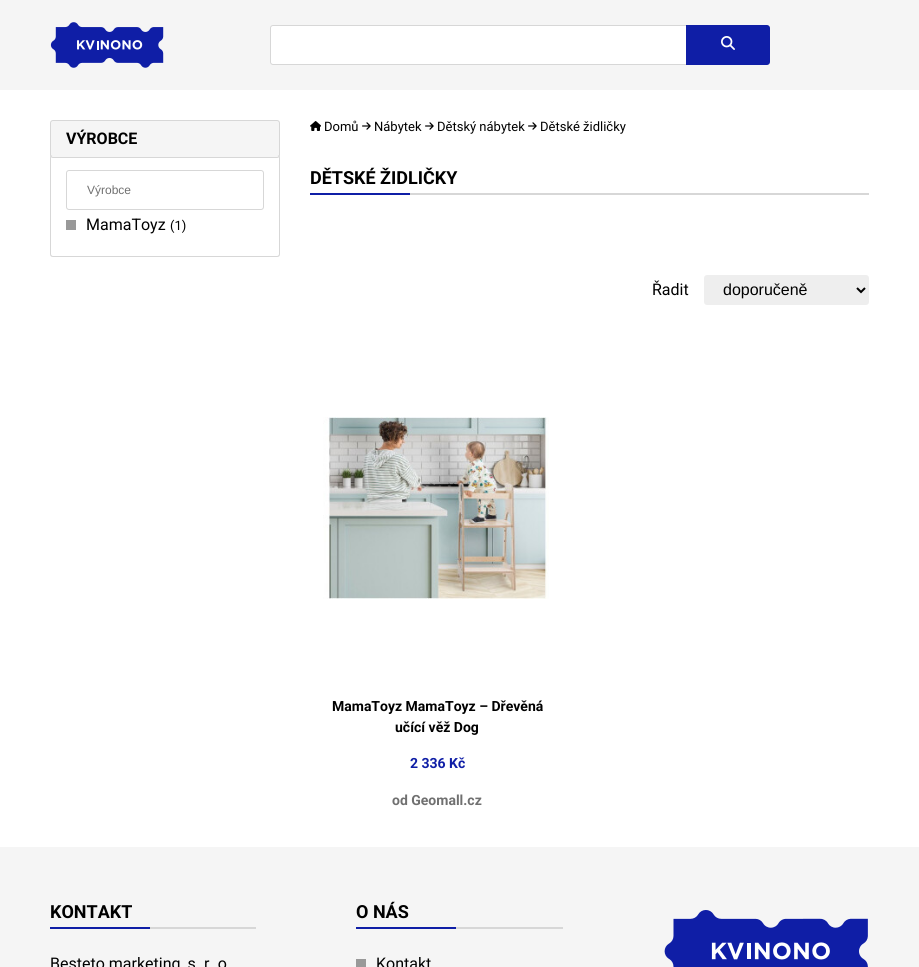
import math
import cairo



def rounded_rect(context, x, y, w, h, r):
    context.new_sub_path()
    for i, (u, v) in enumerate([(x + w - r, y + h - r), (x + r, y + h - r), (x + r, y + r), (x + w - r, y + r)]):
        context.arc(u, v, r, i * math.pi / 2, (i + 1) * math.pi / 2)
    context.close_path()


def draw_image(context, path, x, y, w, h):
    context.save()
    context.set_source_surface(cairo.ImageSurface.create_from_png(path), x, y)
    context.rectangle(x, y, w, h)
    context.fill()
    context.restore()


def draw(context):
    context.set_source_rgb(1, 1, 1)
    context.paint()
    context.set_source_rgb(245 / 255, 245 / 255, 245 / 255)
    context.rectangle(0, 0, 919, 90)
    context.fill()
    draw_image(context, "images/1.png", 50, 22, 114, 46)
    context.set_source_rgb(1, 1, 1)
    rounded_rect(context, 270.5, 25.5, 499, 39, 2.5)
    context.fill_preserve()
    context.set_source_rgb(215 / 255, 215 / 255, 215 / 255)
    context.set_line_width(1)
    context.stroke()
    context.set_source_rgb(15 / 255, 30 / 255, 166 / 255)
    context.new_path()
    context.move_to(686, 25)
    context.line_to(767, 25)
    context.curve_to(768.5, 25, 770, 26.5, 770, 28)
    context.line_to(770, 62)
    context.curve_to(770, 63.5, 768.5, 65, 767, 65)
    context.line_to(686, 65)
    context.close_path()
    context.fill()
    draw_image(context, "images/2.png", 721, 36, 14, 14)
    context.set_source_rgb(245 / 255, 245 / 255, 245 / 255)
    rounded_rect(context, 50.5, 120.5, 229, 37, 2.5)
    context.fill_preserve()
    context.set_source_rgb(215 / 255, 215 / 255, 215 / 255)
    context.stroke()
    context.set_fill_rule(cairo.FillRule.EVEN_ODD)
    context.new_path()
    context.move_to(53, 155)
    context.line_to(277, 155)
    context.curve_to(279, 155, 280, 156, 280, 158)
    context.line_to(280, 254)
    context.curve_to(280, 256, 279, 257, 277, 257)
    context.line_to(53, 257)
    context.curve_to(51, 257, 50, 256, 50, 254)
    context.line_to(50, 158)
    context.curve_to(50, 156, 51, 155, 53, 155)
    context.close_path()
    context.move_to(53, 155)
    context.line_to(277, 155)
    context.curve_to(278, 155, 279, 156, 279, 158)
    context.line_to(279, 254)
    context.curve_to(279, 255, 278, 256, 277, 256)
    context.line_to(53, 256)
    context.curve_to(52, 256, 51, 255, 51, 254)
    context.line_to(51, 158)
    context.curve_to(51, 156, 52, 155, 53, 155)
    context.close_path()
    context.fill()
    rounded_rect(context, 66.5, 170.5, 197, 39, 2.5)
    context.stroke()
    context.set_source_rgb(153 / 255, 153 / 255, 153 / 255)
    context.rectangle(66, 220, 10, 10)
    context.fill()
    draw_image(context, "images/3.png", 310, 121, 11, 10)
    draw_image(context, "images/4.png", 362, 122, 9, 8)
    draw_image(context, "images/4.png", 425, 122, 9, 8)
    draw_image(context, "images/4.png", 528, 122, 9, 8)
    context.set_source_rgb(215 / 255, 215 / 255, 215 / 255)
    context.rectangle(410, 193, 459, 2)
    context.fill()
    context.set_source_rgb(15 / 255, 30 / 255, 166 / 255)
    context.rectangle(310, 193, 100, 2)
    context.fill()
    context.set_source_rgb(238 / 255, 238 / 255, 238 / 255)
    rounded_rect(context, 704, 275, 165, 30, 3)
    context.fill()
    context.new_path()
    context.move_to(857, 288)
    context.line_to(861, 292)
    context.line_to(865, 288)
    context.set_source_rgb(0, 0, 0)
    context.set_line_width(2)
    context.stroke()
    draw_image(context, "images/5.png", 323, 417, 226, 182)
    context.set_source_rgb(245 / 255, 245 / 255, 245 / 255)
    context.rectangle(0, 847, 919, 120)
    context.fill()
    context.set_source_rgb(215 / 255, 215 / 255, 215 / 255)
    context.rectangle(150, 927, 106, 2)
    context.fill()
    context.set_source_rgb(15 / 255, 30 / 255, 166 / 255)
    context.rectangle(50, 927, 100, 2)
    context.fill()
    context.set_source_rgb(215 / 255, 215 / 255, 215 / 255)
    context.rectangle(456, 927, 107, 2)
    context.fill()
    context.set_source_rgb(15 / 255, 30 / 255, 166 / 255)
    context.rectangle(356, 927, 100, 2)
    context.fill()
    context.set_source_rgb(153 / 255, 153 / 255, 153 / 255)
    context.rectangle(356, 959, 10, 8)
    context.fill()
    draw_image(context, "images/6.png", 664, 910, 204, 57)
    context.select_font_face("Roboto", cairo.FontSlant.NORMAL, cairo.FontWeight.BOLD)
    context.set_font_size(16)
    context.set_source_rgb(0, 0, 0)
    context.move_to(66, 144)
    context.show_text("VÝROBCE")
    context.select_font_face("Liberation Sans")
    context.set_font_size(12)
    context.set_source_rgb(112 / 255, 112 / 255, 112 / 255)
    context.move_to(87, 194)
    context.show_text("Výrobce")
    context.select_font_face("Roboto")
    context.set_font_size(16)
    context.set_source_rgb(0, 0, 0)
    context.move_to(86, 230)
    context.show_text("MamaToyz")
    context.set_font_size(13)
    context.move_to(170, 230)
    context.show_text("(1)")
    context.move_to(324, 131)
    context.show_text("Domů")
    context.move_to(374, 131)
    context.show_text("Nábytek")
    context.move_to(437, 131)
    context.show_text("Dětský nábytek")
    context.move_to(540, 131)
    context.show_text("Dětské židličky")
    context.select_font_face("Roboto", cairo.FontSlant.NORMAL, cairo.FontWeight.BOLD)
    context.set_font_size(18)
    context.move_to(310, 184)
    context.show_text("DĚTSKÉ ŽIDLIČKY")
    context.select_font_face("Roboto")
    context.set_font_size(16)
    context.move_to(652, 295)
    context.show_text("Řadit")
    context.select_font_face("Liberation Sans")
    context.move_to(723, 295)
    context.show_text("doporučeně")
    context.select_font_face("Roboto", cairo.FontSlant.NORMAL, cairo.FontWeight.BOLD)
    context.set_font_size(14)
    context.move_to(332, 711)
    context.show_text("MamaToyz MamaToyz – Dřevěná")
    context.move_to(395, 732)
    context.show_text("učící věž Dog")
    context.set_source_rgb(15 / 255, 30 / 255, 166 / 255)
    context.move_to(410, 768)
    context.show_text("2 336 Kč")
    context.set_source_rgb(112 / 255, 112 / 255, 112 / 255)
    context.move_to(392, 805)
    context.show_text("od Geomall.cz")
    context.set_font_size(18)
    context.set_source_rgb(0, 0, 0)
    context.move_to(50, 918)
    context.show_text("KONTAKT")
    context.select_font_face("Roboto")
    context.set_font_size(16)
    context.move_to(50, 969)
    context.show_text("Besteto marketing, s. r. o")
    context.select_font_face("Roboto", cairo.FontSlant.NORMAL, cairo.FontWeight.BOLD)
    context.set_font_size(18)
    context.move_to(356, 918)
    context.show_text("O NÁS")
    context.select_font_face("Roboto")
    context.set_font_size(16)
    context.move_to(376, 969)
    context.show_text("Kontakt")


surface = cairo.ImageSurface(cairo.Format.RGB24, 919, 967)
context = cairo.Context(surface)
options = cairo.FontOptions()
options.set_hint_metrics(cairo.HintMetrics.OFF)
options.set_hint_style(cairo.HintStyle.NONE)
context.set_font_options(options)
context.set_miter_limit(4)
draw(context)
surface.write_to_png("out.png")
